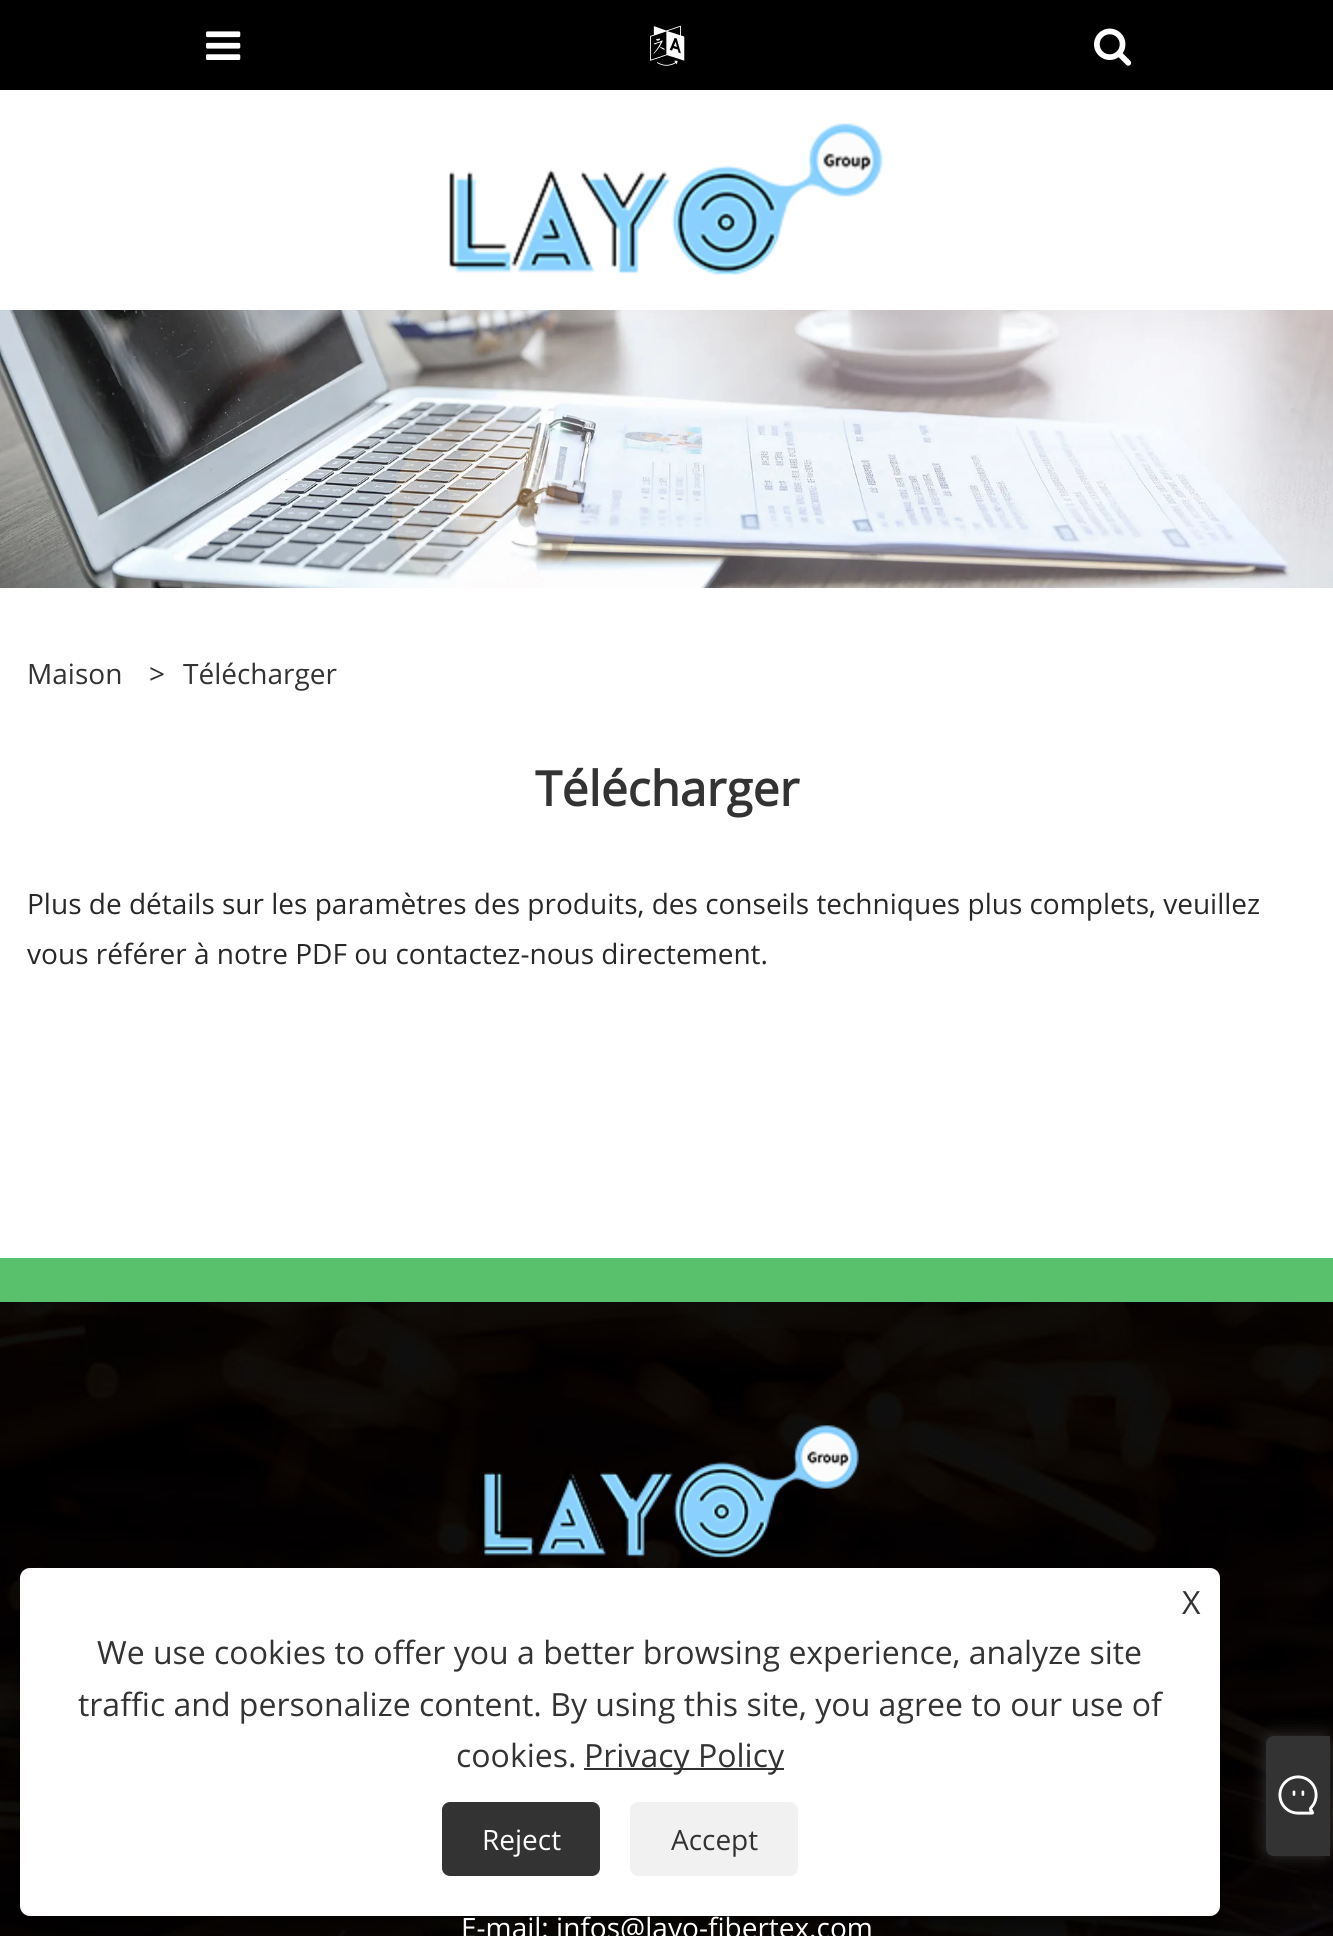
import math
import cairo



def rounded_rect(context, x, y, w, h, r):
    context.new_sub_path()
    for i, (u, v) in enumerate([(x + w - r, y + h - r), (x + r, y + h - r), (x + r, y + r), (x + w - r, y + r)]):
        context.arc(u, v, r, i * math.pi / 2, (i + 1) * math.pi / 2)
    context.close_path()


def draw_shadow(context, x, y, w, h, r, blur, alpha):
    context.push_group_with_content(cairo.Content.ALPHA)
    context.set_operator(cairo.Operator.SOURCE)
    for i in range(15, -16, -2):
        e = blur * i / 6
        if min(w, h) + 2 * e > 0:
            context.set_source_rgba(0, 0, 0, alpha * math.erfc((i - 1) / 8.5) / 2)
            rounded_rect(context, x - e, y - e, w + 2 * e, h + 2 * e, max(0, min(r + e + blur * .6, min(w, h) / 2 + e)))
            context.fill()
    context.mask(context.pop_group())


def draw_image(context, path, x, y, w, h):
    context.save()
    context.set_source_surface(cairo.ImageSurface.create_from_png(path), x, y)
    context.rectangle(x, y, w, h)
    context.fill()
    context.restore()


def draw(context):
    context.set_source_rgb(1, 1, 1)
    context.paint()
    context.set_source_rgb(0, 0, 0)
    context.rectangle(0, 0, 1333, 90)
    context.fill()
    draw_image(context, "images/1.png", 206, 31, 35, 29)
    draw_image(context, "images/2.png", 650, 25, 35, 41)
    draw_image(context, "images/3.png", 1094, 28, 38, 38)
    draw_image(context, "images/4.png", 449, 123, 434, 152)
    draw_image(context, "images/5.png", 0, 310, 1333, 278)
    draw_image(context, "images/6.png", 0, 1302, 1333, 634)
    context.set_source_rgb(89 / 255, 192 / 255, 108 / 255)
    context.rectangle(0, 1258, 1333, 44)
    context.fill()
    draw_image(context, "images/7.png", 479, 1425, 380, 133)
    context.set_source_rgb(0, 0, 0)
    draw_shadow(context, 20, 1580, 1200, 348, 10, 6, 0.23)
    context.set_source_rgb(51 / 255, 51 / 255, 51 / 255)
    draw_shadow(context, 1266, 1736, 64, 120, 8, 8, 1)
    context.set_source_rgb(51 / 255, 51 / 255, 51 / 255)
    context.new_path()
    context.move_to(1274, 1736)
    context.line_to(1330, 1736)
    context.line_to(1330, 1856)
    context.line_to(1274, 1856)
    context.curve_to(1269.5, 1856, 1266, 1852.5, 1266, 1848)
    context.line_to(1266, 1744)
    context.curve_to(1266, 1739.5, 1269.5, 1736, 1274, 1736)
    context.close_path()
    context.fill()
    draw_image(context, "images/8.png", 1278, 1775, 40, 40)
    context.set_source_rgb(0, 0, 0)
    draw_shadow(context, 20, 1588, 1200, 348, 10, 20, 0.19)
    context.set_source_rgb(1, 1, 1)
    rounded_rect(context, 20, 1568, 1200, 348, 10)
    context.fill()
    context.set_source_rgb(51 / 255, 51 / 255, 51 / 255)
    context.rectangle(584, 1768, 200, 2)
    context.fill()
    rounded_rect(context, 442, 1802, 158, 74, 8)
    context.fill()
    context.set_source_rgb(241 / 255, 241 / 255, 241 / 255)
    rounded_rect(context, 630, 1802, 168, 74, 8)
    context.fill()
    context.select_font_face("Open Sans")
    context.set_font_size(28)
    context.set_source_rgb(51 / 255, 51 / 255, 51 / 255)
    context.move_to(27, 684)
    context.show_text("Maison")
    context.move_to(149, 684)
    context.show_text(">")
    context.move_to(183, 684)
    context.show_text("Télécharger")
    context.select_font_face("Open Sans", cairo.FontSlant.NORMAL, cairo.FontWeight.BOLD)
    context.set_font_size(48)
    context.move_to(535, 806)
    context.show_text("Télécharger")
    context.select_font_face("Open Sans")
    context.set_font_size(28)
    context.set_source_rgb(40 / 255, 40 / 255, 40 / 255)
    context.move_to(27, 914)
    context.show_text("Plus de détails sur les paramètres des produits, des conseils techniques plus complets, veuillez")
    context.move_to(27, 964)
    context.show_text("vous référer à notre PDF ou contactez-nous directement.")
    context.set_source_rgb(1, 1, 1)
    context.move_to(461, 1938)
    context.show_text("E-mail: infos@layo-fibertex.com")
    context.set_font_size(32)
    context.set_source_rgb(51 / 255, 51 / 255, 51 / 255)
    context.move_to(1182, 1614)
    context.show_text("X")
    context.move_to(97, 1664)
    context.show_text("We use cookies to offer you a better browsing experience, analyze site")
    context.move_to(78, 1716)
    context.show_text("traffic and personalize content. By using this site, you agree to our use of")
    context.move_to(456, 1767)
    context.show_text("cookies.")
    context.move_to(584, 1767)
    context.show_text("Privacy Policy")
    context.set_font_size(28)
    context.set_source_rgb(1, 1, 1)
    context.move_to(482, 1850)
    context.show_text("Reject")
    context.set_source_rgb(51 / 255, 51 / 255, 51 / 255)
    context.move_to(671, 1850)
    context.show_text("Accept")


surface = cairo.ImageSurface(cairo.Format.RGB24, 1333, 1936)
context = cairo.Context(surface)
options = cairo.FontOptions()
options.set_hint_metrics(cairo.HintMetrics.OFF)
options.set_hint_style(cairo.HintStyle.NONE)
context.set_font_options(options)
context.set_miter_limit(4)
draw(context)
surface.write_to_png("out.png")
